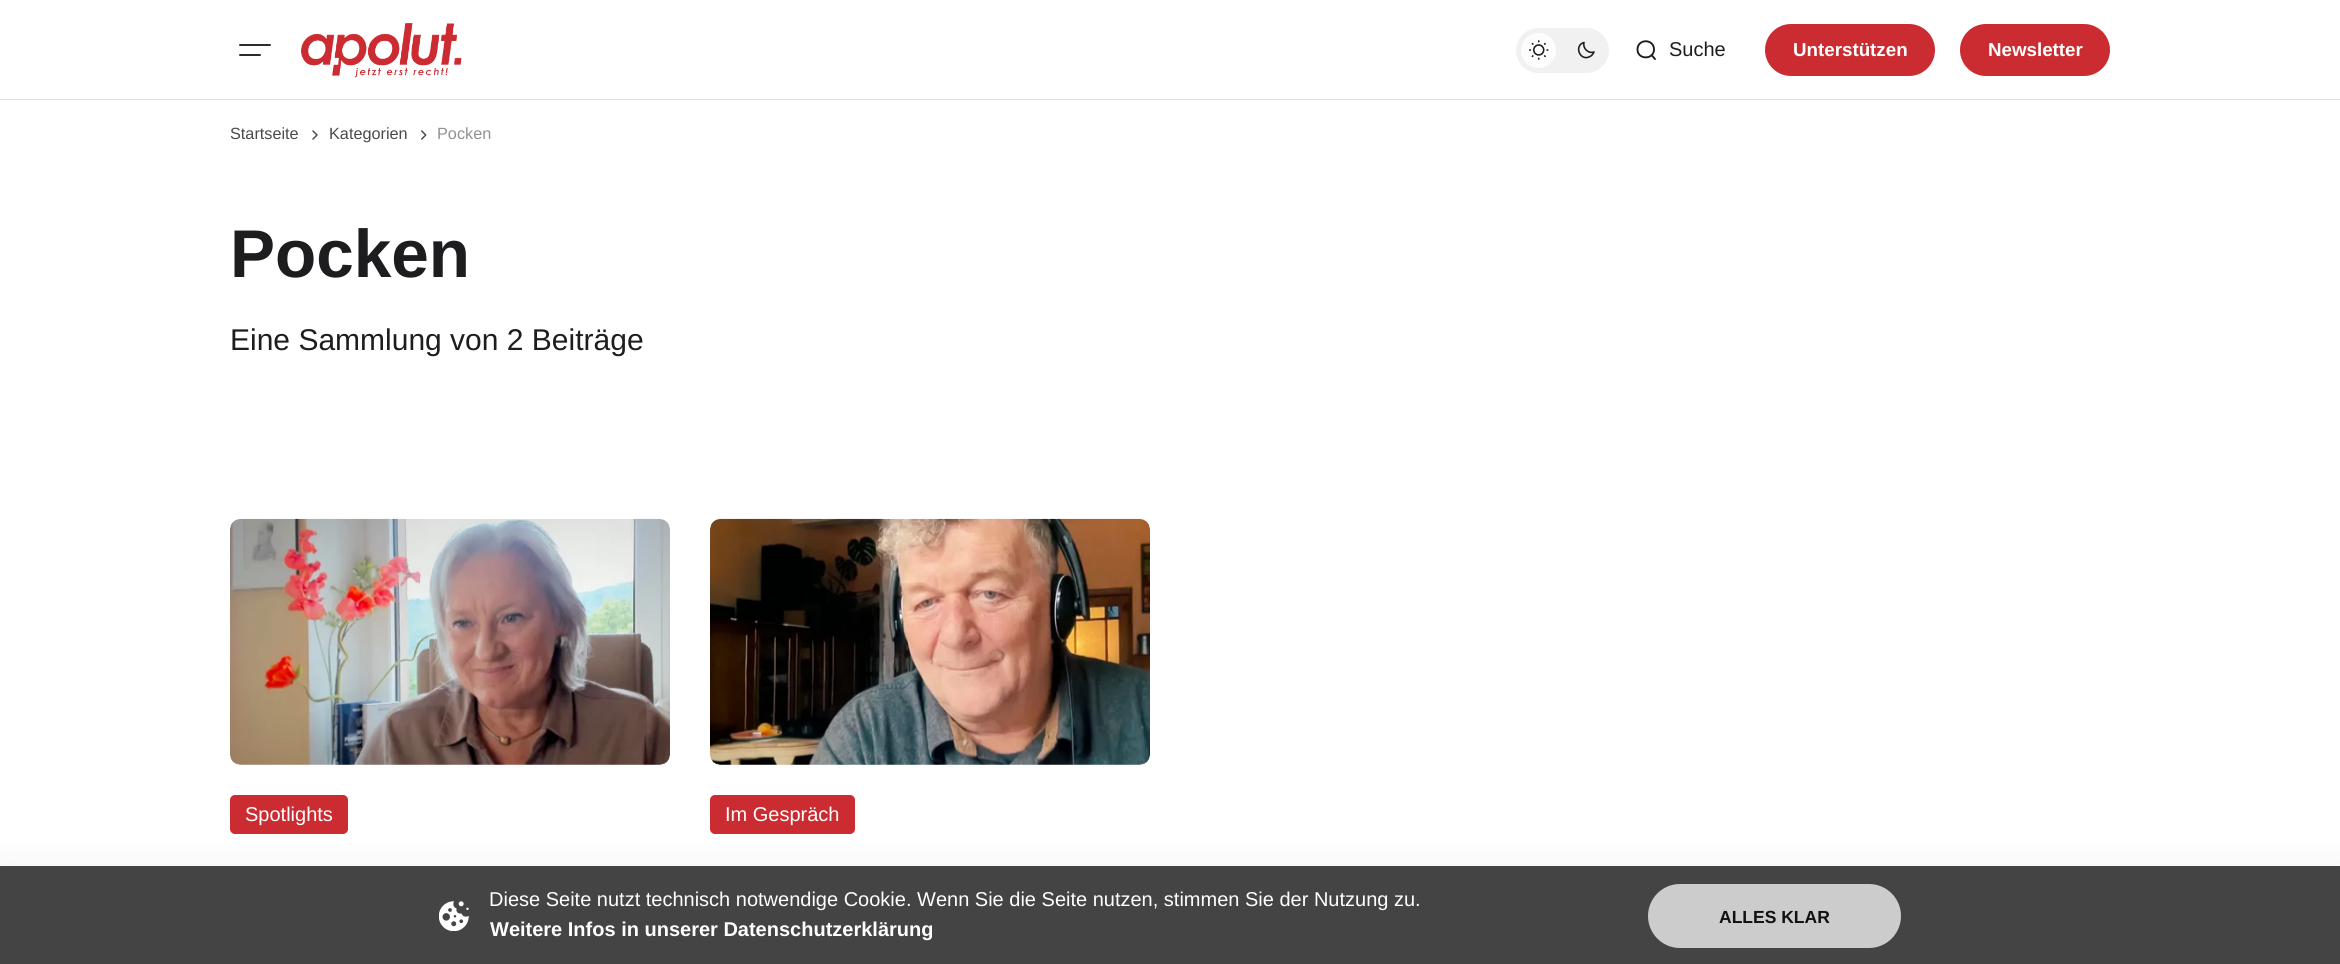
import math
import cairo



def rounded_rect(context, x, y, w, h, r):
    context.new_sub_path()
    for i, (u, v) in enumerate([(x + w - r, y + h - r), (x + r, y + h - r), (x + r, y + r), (x + w - r, y + r)]):
        context.arc(u, v, r, i * math.pi / 2, (i + 1) * math.pi / 2)
    context.close_path()


def draw_shadow(context, x, y, w, h, r, blur, alpha):
    context.push_group_with_content(cairo.Content.ALPHA)
    context.set_operator(cairo.Operator.SOURCE)
    for i in range(15, -16, -2):
        e = blur * i / 6
        if min(w, h) + 2 * e > 0:
            context.set_source_rgba(0, 0, 0, alpha * math.erfc((i - 1) / 8.5) / 2)
            rounded_rect(context, x - e, y - e, w + 2 * e, h + 2 * e, max(0, min(r + e + blur * .6, min(w, h) / 2 + e)))
            context.fill()
    context.mask(context.pop_group())


def draw_image(context, path, x, y, w, h):
    context.save()
    context.set_source_surface(cairo.ImageSurface.create_from_png(path), x, y)
    context.rectangle(x, y, w, h)
    context.fill()
    context.restore()


def draw(context):
    context.set_source_rgb(1, 1, 1)
    context.paint()
    context.set_source_rgb(221 / 255, 221 / 255, 221 / 255)
    context.rectangle(0, 99, 2340, 1)
    context.fill()
    context.new_path()
    context.move_to(240, 45)
    context.line_to(270, 45)
    context.move_to(240, 55)
    context.line_to(260, 55)
    context.set_source_rgb(29 / 255, 29 / 255, 31 / 255)
    context.set_line_width(1.9)
    context.set_line_cap(cairo.LineCap.ROUND)
    context.stroke()
    draw_image(context, "images/1.png", 301, 23, 161, 55)
    context.set_source_rgb(241 / 255, 241 / 255, 242 / 255)
    rounded_rect(context, 1516, 28, 93, 45, 22.5)
    context.fill()
    context.set_source_rgb(253 / 255, 253 / 255, 253 / 255)
    context.arc(1538.5, 50.5, 17.5, 0, 2 * math.pi)
    context.fill()
    draw_image(context, "images/2.png", 1529, 40, 20, 20)
    context.new_path()
    context.move_to(1594, 52)
    context.curve_to(1588, 54, 1582.5, 48, 1584, 42.5)
    context.curve_to(1573.5, 45.5, 1580, 62, 1590, 56.5)
    context.curve_to(1592, 55.5, 1593, 54, 1594, 52)
    context.close_path()
    context.set_source_rgb(29 / 255, 29 / 255, 31 / 255)
    context.set_line_width(1.6)
    context.set_line_cap(cairo.LineCap.BUTT)
    context.set_line_join(cairo.LineJoin.ROUND)
    context.stroke()
    context.new_path()
    context.move_to(1651.5, 55)
    context.line_to(1655, 59)
    context.move_to(1654, 49.5)
    context.curve_to(1654, 60, 1637.5, 60, 1637.5, 49.5)
    context.curve_to(1637.5, 38.5, 1654, 38.5, 1654, 49.5)
    context.close_path()
    context.set_line_width(1.9)
    context.set_line_cap(cairo.LineCap.ROUND)
    context.set_line_join(cairo.LineJoin.MITER)
    context.stroke()
    context.set_source_rgb(203 / 255, 44 / 255, 49 / 255)
    rounded_rect(context, 1765, 24, 170, 52, 26)
    context.fill()
    rounded_rect(context, 1960, 24, 150, 52, 26)
    context.fill()
    draw_image(context, "images/3.png", 312, 130, 6, 10)
    draw_image(context, "images/4.png", 421, 130, 6, 10)
    draw_image(context, "images/5.png", 230, 518, 440, 247)
    rounded_rect(context, 230, 795, 118, 39, 5)
    context.fill()
    draw_image(context, "images/6.png", 710, 518, 440, 247)
    rounded_rect(context, 710, 795, 145, 39, 5)
    context.fill()
    context.set_source_rgb(0, 0, 0)
    draw_shadow(context, 0, 866, 2340, 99, 0, 19, 0.05)
    context.set_source_rgb(68 / 255, 68 / 255, 68 / 255)
    context.rectangle(0, 866, 2340, 98)
    context.fill()
    draw_image(context, "images/7.png", 439, 901, 30, 30)
    context.set_source_rgb(204 / 255, 204 / 255, 204 / 255)
    rounded_rect(context, 1648, 884, 253, 64, 32)
    context.fill()
    context.select_font_face("Liberation Sans")
    context.set_font_size(20)
    context.set_source_rgb(29 / 255, 29 / 255, 31 / 255)
    context.move_to(1669, 56)
    context.show_text("Suche")
    context.select_font_face("Liberation Sans", cairo.FontSlant.NORMAL, cairo.FontWeight.BOLD)
    context.set_font_size(18.75)
    context.set_source_rgb(1, 1, 1)
    context.move_to(1793, 56)
    context.show_text("Unterstützen")
    context.move_to(1988, 56)
    context.show_text("Newsletter")
    context.select_font_face("Liberation Sans")
    context.set_font_size(16.25)
    context.set_source_rgb(74 / 255, 74 / 255, 76 / 255)
    context.move_to(230, 139)
    context.show_text("Startseite")
    context.move_to(329, 139)
    context.show_text("Kategorien")
    context.set_source_rgb(146 / 255, 146 / 255, 148 / 255)
    context.move_to(437, 139)
    context.show_text("Pocken")
    context.select_font_face("Liberation Sans", cairo.FontSlant.NORMAL, cairo.FontWeight.BOLD)
    context.set_font_size(67.5)
    context.set_source_rgb(29 / 255, 29 / 255, 31 / 255)
    context.move_to(230, 277)
    context.show_text("Pocken")
    context.select_font_face("Liberation Sans")
    context.set_font_size(30)
    context.move_to(230, 350)
    context.show_text("Eine Sammlung von 2 Beiträge")
    context.set_font_size(20)
    context.set_source_rgb(1, 1, 1)
    context.move_to(245, 821)
    context.show_text("Spotlights")
    context.move_to(725, 821)
    context.show_text("Im Gespräch")
    context.move_to(489, 906)
    context.show_text("Diese Seite nutzt technisch notwendige Cookie. Wenn Sie die Seite nutzen, stimmen Sie der Nutzung zu.")
    context.select_font_face("Liberation Sans", cairo.FontSlant.NORMAL, cairo.FontWeight.BOLD)
    context.move_to(490, 936)
    context.show_text("Weitere Infos in unserer Datenschutzerklärung")
    context.set_font_size(17.5)
    context.set_source_rgb(17 / 255, 17 / 255, 17 / 255)
    context.move_to(1719, 923)
    context.show_text("ALLES KLAR")


surface = cairo.ImageSurface(cairo.Format.RGB24, 2340, 964)
context = cairo.Context(surface)
options = cairo.FontOptions()
options.set_hint_metrics(cairo.HintMetrics.OFF)
options.set_hint_style(cairo.HintStyle.NONE)
context.set_font_options(options)
context.set_miter_limit(4)
draw(context)
surface.write_to_png("out.png")
